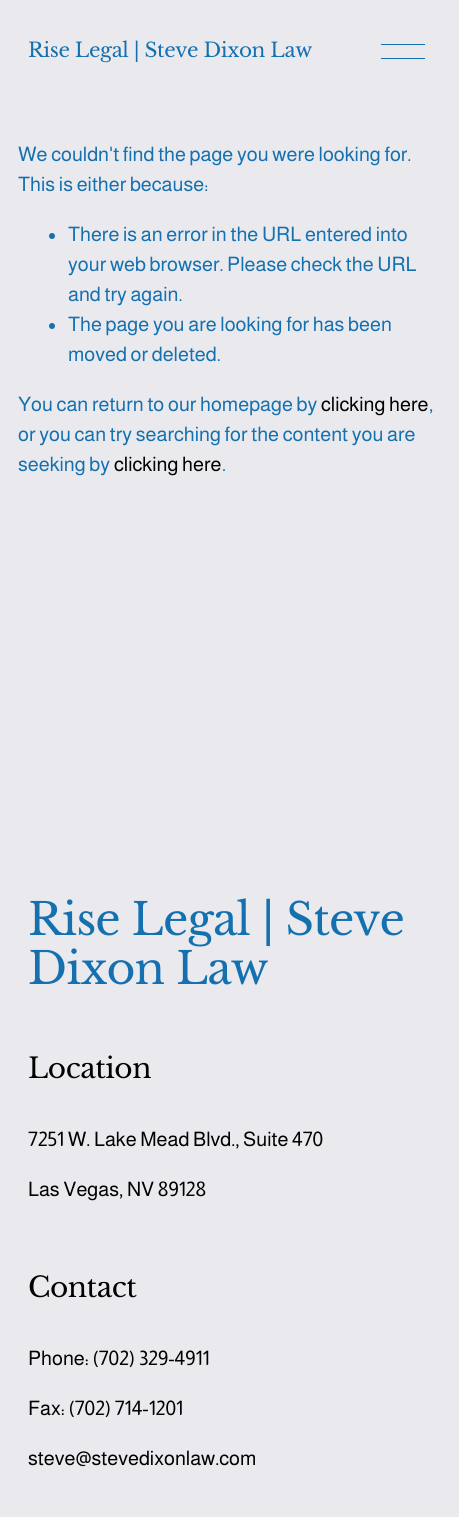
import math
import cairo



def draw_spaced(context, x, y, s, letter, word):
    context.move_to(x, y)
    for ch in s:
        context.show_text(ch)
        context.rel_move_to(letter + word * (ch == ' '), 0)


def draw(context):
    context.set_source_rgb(234 / 255, 234 / 255, 238 / 255)
    context.paint()
    context.set_source_rgb(20 / 255, 112 / 255, 175 / 255)
    context.rectangle(381, 44, 44, 1)
    context.fill()
    context.rectangle(381, 58, 44, 1)
    context.fill()
    context.arc(52, 236, 3, 0, 2 * math.pi)
    context.fill()
    context.arc(52, 326, 3, 0, 2 * math.pi)
    context.fill()
    context.select_font_face("Libre Baskerville")
    context.set_font_size(20)
    draw_spaced(context, 28, 57, "Rise Legal | Steve Dixon Law", -0.4, 0)
    context.select_font_face("Almarai")
    context.move_to(18, 161)
    context.show_text("We couldn't find the page you were looking for.")
    context.move_to(18, 191)
    context.show_text("This is either because:")
    context.move_to(68, 241)
    context.show_text("There is an error in the URL entered into")
    context.move_to(68, 271)
    context.show_text("your web browser. Please check the URL")
    context.move_to(68, 301)
    context.show_text("and try again.")
    context.move_to(68, 331)
    context.show_text("The page you are looking for has been")
    context.move_to(68, 361)
    context.show_text("moved or deleted.")
    context.move_to(18, 411)
    context.show_text("You can return to our homepage by")
    context.set_source_rgb(0, 0, 0)
    context.move_to(321, 411)
    context.show_text("clicking here")
    context.set_source_rgb(20 / 255, 112 / 255, 175 / 255)
    context.move_to(429, 411)
    context.show_text(",")
    context.move_to(18, 441)
    context.show_text("or you can try searching for the content you are")
    context.move_to(18, 471)
    context.show_text("seeking by")
    context.set_source_rgb(0, 0, 0)
    context.move_to(114, 471)
    context.show_text("clicking here")
    context.set_source_rgb(20 / 255, 112 / 255, 175 / 255)
    context.move_to(222, 471)
    context.show_text(".")
    context.select_font_face("Libre Baskerville")
    context.set_font_size(44.25)
    draw_spaced(context, 28, 935, "Rise Legal | Steve", -0.9, 0)
    draw_spaced(context, 28, 984, "Dixon Law", -0.9, 0)
    context.set_font_size(28)
    context.set_source_rgb(0, 0, 0)
    draw_spaced(context, 28, 1078, "Location", -0.5, 0)
    context.select_font_face("Almarai")
    context.set_font_size(20)
    context.move_to(28, 1146)
    context.show_text("7251 W. Lake Mead Blvd., Suite 470")
    context.move_to(28, 1196)
    context.show_text("Las Vegas, NV 89128")
    context.select_font_face("Libre Baskerville")
    context.set_font_size(28)
    draw_spaced(context, 28, 1297, "Contact", -0.5, 0)
    context.select_font_face("Almarai")
    context.set_font_size(20)
    context.move_to(28, 1365)
    context.show_text("Phone: (702) 329-4911")
    context.move_to(28, 1415)
    context.show_text("Fax: (702) 714-1201")
    context.move_to(28, 1465)
    context.show_text("steve@stevedixonlaw.com")


surface = cairo.ImageSurface(cairo.Format.RGB24, 459, 1517)
context = cairo.Context(surface)
options = cairo.FontOptions()
options.set_hint_metrics(cairo.HintMetrics.OFF)
options.set_hint_style(cairo.HintStyle.NONE)
context.set_font_options(options)
context.set_miter_limit(4)
draw(context)
surface.write_to_png("out.png")
